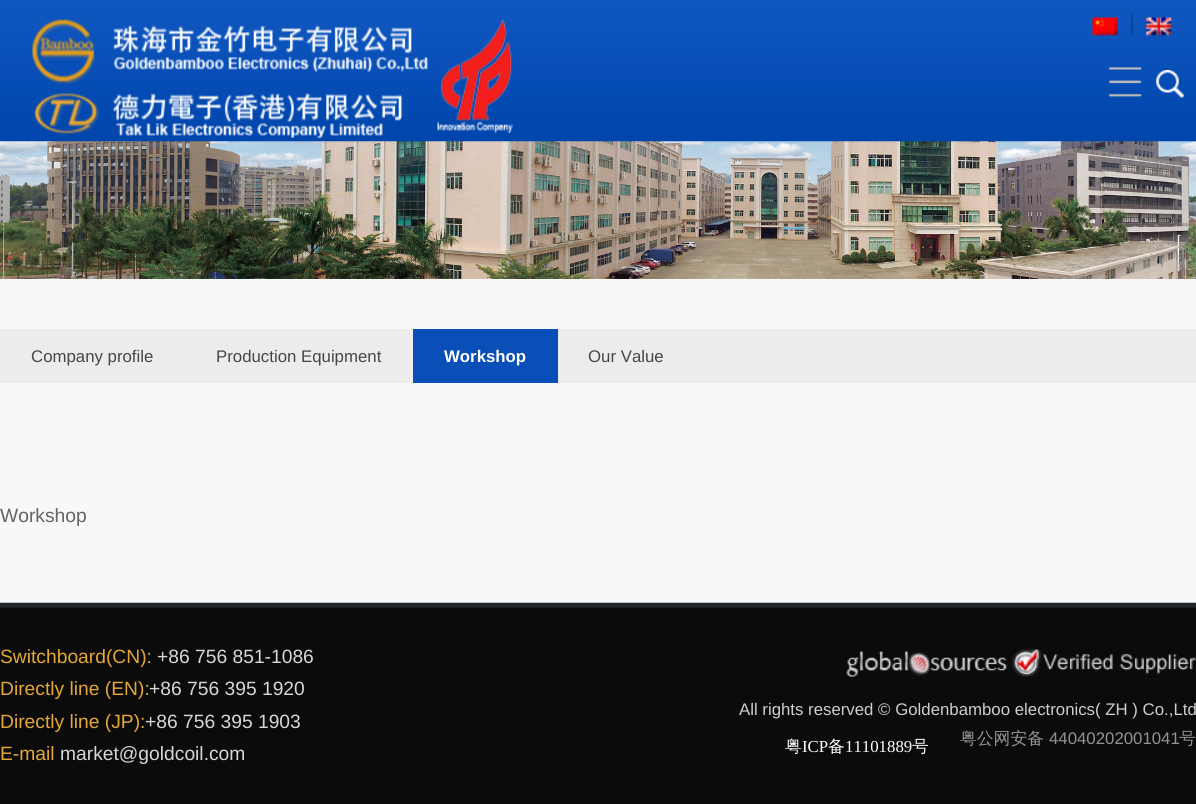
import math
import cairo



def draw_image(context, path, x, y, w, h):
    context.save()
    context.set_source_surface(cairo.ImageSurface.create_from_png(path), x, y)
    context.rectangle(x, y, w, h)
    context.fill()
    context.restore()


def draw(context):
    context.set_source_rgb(248 / 255, 248 / 255, 248 / 255)
    context.paint()
    draw_image(context, "images/8.png", 0, 141, 1196, 138)
    draw_image(context, "images/1.png", 0, 0, 1196, 142)
    draw_image(context, "images/2.png", 32, 19, 481, 120)
    draw_image(context, "images/3.png", 1092, 17, 26, 19)
    draw_image(context, "images/4.png", 1131, 13, 2, 23)
    draw_image(context, "images/5.png", 1146, 17, 26, 19)
    draw_image(context, "images/6.png", 1108, 67, 34, 30)
    draw_image(context, "images/7.png", 1156, 70, 28, 28)
    context.set_source_rgb(236 / 255, 236 / 255, 236 / 255)
    context.rectangle(0, 329, 1196, 54)
    context.fill()
    context.set_source_rgb(9 / 255, 79 / 255, 183 / 255)
    context.rectangle(413, 329, 145, 54)
    context.fill()
    draw_image(context, "images/9.png", 0, 602, 1196, 202)
    draw_image(context, "images/10.png", 846, 649, 350, 28)
    context.select_font_face("Liberation Sans")
    context.set_font_size(16.8)
    context.set_source_rgb(69 / 255, 69 / 255, 69 / 255)
    context.move_to(31, 362)
    context.show_text("Company profile")
    context.move_to(216, 362)
    context.show_text("Production Equipment")
    context.select_font_face("Liberation Sans", cairo.FontSlant.NORMAL, cairo.FontWeight.BOLD)
    context.set_source_rgb(1, 1, 1)
    context.move_to(444, 362)
    context.show_text("Workshop")
    context.select_font_face("Liberation Sans")
    context.set_source_rgb(69 / 255, 69 / 255, 69 / 255)
    context.move_to(588, 362)
    context.show_text("Our Value")
    context.set_font_size(19.25)
    context.set_source_rgb(99 / 255, 99 / 255, 99 / 255)
    context.move_to(0, 522)
    context.show_text("Workshop")
    context.set_source_rgb(228 / 255, 167 / 255, 55 / 255)
    context.move_to(0, 663)
    context.show_text("Switchboard(CN):")
    context.set_source_rgb(215 / 255, 215 / 255, 215 / 255)
    context.move_to(157, 663)
    context.show_text("+86 756 851-1086")
    context.set_source_rgb(228 / 255, 167 / 255, 55 / 255)
    context.move_to(0, 695)
    context.show_text("Directly line (EN):")
    context.set_source_rgb(215 / 255, 215 / 255, 215 / 255)
    context.move_to(149, 695)
    context.show_text("+86 756 395 1920")
    context.set_source_rgb(228 / 255, 167 / 255, 55 / 255)
    context.move_to(0, 728)
    context.show_text("Directly line (JP):")
    context.set_source_rgb(215 / 255, 215 / 255, 215 / 255)
    context.move_to(145, 728)
    context.show_text("+86 756 395 1903")
    context.set_source_rgb(228 / 255, 167 / 255, 55 / 255)
    context.move_to(0, 760)
    context.show_text("E-mail")
    context.set_source_rgb(215 / 255, 215 / 255, 215 / 255)
    context.move_to(60, 760)
    context.show_text("market@goldcoil.com")
    context.set_font_size(16.8)
    context.set_source_rgb(204 / 255, 206 / 255, 208 / 255)
    context.move_to(739, 715)
    context.show_text("All rights reserved © Goldenbamboo electronics( ZH ) Co.,Ltd")
    context.select_font_face("WenQuanYi Zen Hei Medium")
    context.set_source_rgb(1, 1, 1)
    context.move_to(785, 752)
    context.show_text("粤")
    context.select_font_face("Liberation Serif")
    context.move_to(802, 752)
    context.show_text("ICP")
    context.select_font_face("WenQuanYi Zen Hei Medium")
    context.move_to(828, 752)
    context.show_text("备")
    context.select_font_face("Liberation Serif")
    context.move_to(845, 752)
    context.show_text("11101889")
    context.select_font_face("WenQuanYi Zen Hei Medium")
    context.move_to(912, 752)
    context.show_text("号")
    context.set_source_rgb(147 / 255, 147 / 255, 147 / 255)
    context.move_to(960, 744)
    context.show_text("粤公网安备")
    context.select_font_face("Liberation Sans")
    context.move_to(1049, 744)
    context.show_text("44040202001041")
    context.select_font_face("WenQuanYi Zen Hei Medium")
    context.move_to(1179, 744)
    context.show_text("号")


surface = cairo.ImageSurface(cairo.Format.RGB24, 1196, 804)
context = cairo.Context(surface)
options = cairo.FontOptions()
options.set_hint_metrics(cairo.HintMetrics.OFF)
options.set_hint_style(cairo.HintStyle.NONE)
context.set_font_options(options)
context.set_miter_limit(4)
draw(context)
surface.write_to_png("out.png")
